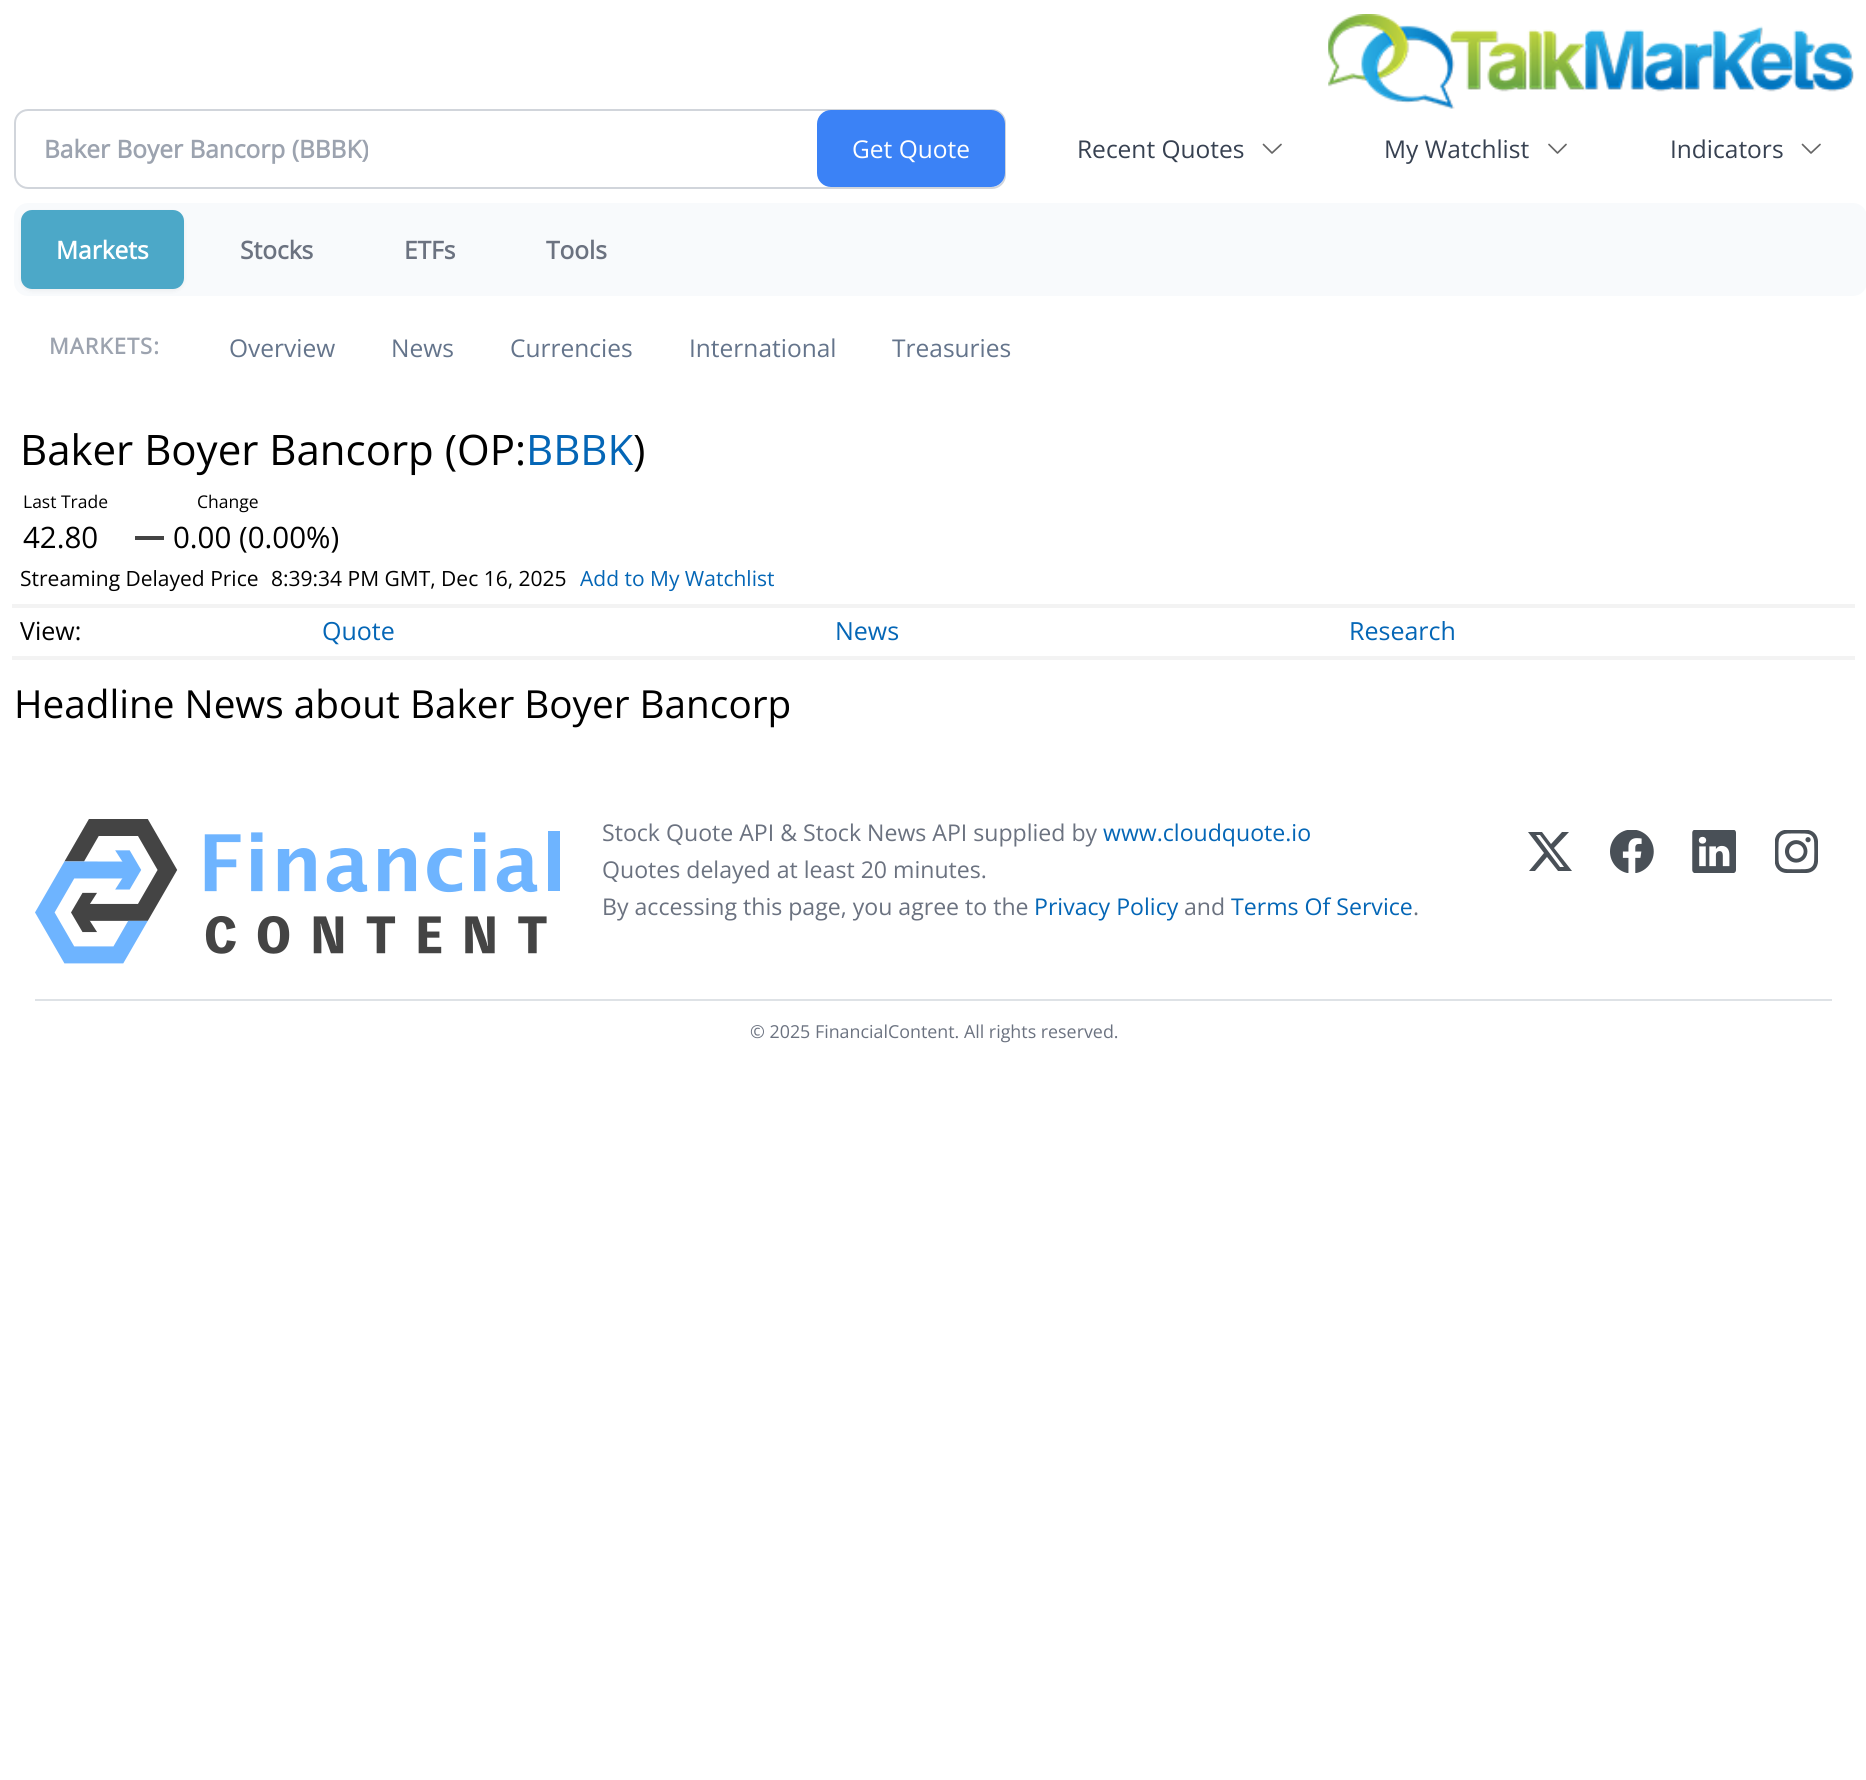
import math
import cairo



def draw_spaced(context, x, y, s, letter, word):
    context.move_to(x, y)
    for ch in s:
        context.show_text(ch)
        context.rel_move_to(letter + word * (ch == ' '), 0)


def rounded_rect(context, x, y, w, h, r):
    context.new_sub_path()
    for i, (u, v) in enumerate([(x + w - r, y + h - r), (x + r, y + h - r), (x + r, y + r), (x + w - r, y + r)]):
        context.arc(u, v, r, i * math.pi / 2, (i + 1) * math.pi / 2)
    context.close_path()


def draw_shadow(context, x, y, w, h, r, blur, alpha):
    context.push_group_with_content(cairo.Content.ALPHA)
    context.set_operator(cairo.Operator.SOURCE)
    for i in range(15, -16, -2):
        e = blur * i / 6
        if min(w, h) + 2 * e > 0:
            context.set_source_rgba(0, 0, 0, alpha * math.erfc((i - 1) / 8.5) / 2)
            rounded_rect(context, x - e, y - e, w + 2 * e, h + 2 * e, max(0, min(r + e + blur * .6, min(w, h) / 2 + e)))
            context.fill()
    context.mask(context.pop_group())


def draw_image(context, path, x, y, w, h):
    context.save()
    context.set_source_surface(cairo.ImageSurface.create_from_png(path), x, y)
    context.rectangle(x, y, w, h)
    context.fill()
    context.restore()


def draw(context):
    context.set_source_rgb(1, 1, 1)
    context.paint()
    draw_image(context, "images/1.png", 1328, 14, 526, 95)
    rounded_rect(context, 15, 110, 990, 78, 13)
    context.set_source_rgb(209 / 255, 213 / 255, 219 / 255)
    context.stroke()
    context.set_source_rgb(59 / 255, 130 / 255, 246 / 255)
    rounded_rect(context, 817, 110, 188, 77, 14)
    context.fill()
    context.new_path()
    context.move_to(1281, 144.5)
    context.line_to(1272, 153)
    context.line_to(1263.5, 144.5)
    context.set_source_rgb(102 / 255, 102 / 255, 102 / 255)
    context.set_line_width(1.7)
    context.set_line_cap(cairo.LineCap.ROUND)
    context.set_line_join(cairo.LineJoin.ROUND)
    context.stroke()
    context.new_path()
    context.move_to(1566, 144.5)
    context.line_to(1557.5, 153)
    context.line_to(1549, 144.5)
    context.stroke()
    context.new_path()
    context.move_to(1820, 144.5)
    context.line_to(1811, 153)
    context.line_to(1802.5, 144.5)
    context.stroke()
    context.set_source_rgb(248 / 255, 250 / 255, 252 / 255)
    rounded_rect(context, 14, 203, 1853, 93, 14)
    context.fill()
    context.set_source_rgb(0, 0, 0)
    draw_shadow(context, 21, 212, 163, 79, 11, 2, 0.05)
    context.set_source_rgb(76 / 255, 168 / 255, 200 / 255)
    rounded_rect(context, 21, 210, 163, 79, 11)
    context.fill()
    context.set_source_rgb(68 / 255, 68 / 255, 68 / 255)
    context.rectangle(135, 536, 29, 4)
    context.fill()
    context.set_source_rgb(243 / 255, 243 / 255, 243 / 255)
    context.rectangle(12, 604, 1843, 4)
    context.fill()
    context.rectangle(12, 656, 1843, 4)
    context.fill()
    draw_image(context, "images/2.png", 35, 819, 525, 145)
    context.set_source_rgb(73 / 255, 80 / 255, 87 / 255)
    context.new_path()
    context.move_to(1562, 832)
    context.line_to(1569, 832)
    context.line_to(1554, 848)
    context.line_to(1572, 871)
    context.line_to(1558, 871)
    context.line_to(1547, 857)
    context.line_to(1535, 871)
    context.line_to(1529, 871)
    context.line_to(1544, 853)
    context.line_to(1528, 832)
    context.line_to(1542, 832)
    context.line_to(1551, 844)
    context.close_path()
    context.move_to(1560, 867)
    context.line_to(1564, 867)
    context.line_to(1540, 835)
    context.line_to(1536, 835)
    context.close_path()
    context.fill()
    draw_image(context, "images/3.png", 1610, 830, 44, 43)
    draw_image(context, "images/4.png", 1692, 830, 44, 43)
    draw_image(context, "images/5.png", 1775, 830, 43, 43)
    context.set_source_rgb(222 / 255, 226 / 255, 230 / 255)
    context.rectangle(35, 999, 1797, 2)
    context.fill()
    context.select_font_face("Open Sans", cairo.FontSlant.NORMAL, cairo.FontWeight.BOLD)
    context.set_font_size(24.5)
    context.set_source_rgb(156 / 255, 163 / 255, 175 / 255)
    context.move_to(44, 158)
    context.show_text("Baker Boyer Bancorp (BBBK)")
    context.select_font_face("Open Sans")
    context.set_source_rgb(1, 1, 1)
    context.move_to(852, 158)
    context.show_text("Get Quote")
    context.set_source_rgb(55 / 255, 65 / 255, 81 / 255)
    context.move_to(1077, 158)
    context.show_text("Recent Quotes")
    context.move_to(1384, 158)
    context.show_text("My Watchlist")
    context.move_to(1670, 158)
    context.show_text("Indicators")
    context.select_font_face("Open Sans", cairo.FontSlant.NORMAL, cairo.FontWeight.BOLD)
    context.set_source_rgb(1, 1, 1)
    context.move_to(56, 259)
    context.show_text("Markets")
    context.set_source_rgb(107 / 255, 114 / 255, 128 / 255)
    context.move_to(240, 259)
    context.show_text("Stocks")
    context.move_to(404, 259)
    context.show_text("ETFs")
    context.move_to(546, 259)
    context.show_text("Tools")
    context.set_font_size(22)
    context.set_source_rgb(156 / 255, 163 / 255, 175 / 255)
    draw_spaced(context, 49, 354, "MARKETS:", 1, 0)
    context.select_font_face("Open Sans")
    context.set_font_size(24.5)
    context.set_source_rgb(100 / 255, 116 / 255, 139 / 255)
    context.move_to(229, 357)
    context.show_text("Overview")
    context.move_to(391, 357)
    context.show_text("News")
    context.move_to(510, 357)
    context.show_text("Currencies")
    context.move_to(689, 357)
    context.show_text("International")
    context.move_to(892, 357)
    context.show_text("Treasuries")
    context.set_font_size(42)
    context.set_source_rgb(0, 0, 0)
    context.move_to(20, 465)
    context.show_text("Baker Boyer Bancorp (OP:")
    context.set_source_rgb(4 / 255, 102 / 255, 182 / 255)
    context.move_to(526, 465)
    context.show_text("BBBK")
    context.set_source_rgb(0, 0, 0)
    context.move_to(633, 465)
    context.show_text(")")
    context.set_font_size(17.5)
    context.move_to(23, 508)
    context.show_text("Last Trade")
    context.set_font_size(29.5)
    context.move_to(23, 548)
    context.show_text("42.80")
    context.set_font_size(17.5)
    context.move_to(197, 508)
    context.show_text("Change")
    context.set_font_size(29.5)
    context.move_to(173, 548)
    context.show_text("0.00 (0.00%)")
    context.set_font_size(21)
    context.move_to(20, 586)
    context.show_text("Streaming Delayed Price")
    context.move_to(271, 586)
    context.show_text("8:39:34 PM GMT, Dec 16, 2025")
    context.set_source_rgb(4 / 255, 102 / 255, 182 / 255)
    context.move_to(580, 586)
    context.show_text("Add to My Watchlist")
    context.set_font_size(25)
    context.set_source_rgb(0, 0, 0)
    context.move_to(20, 640)
    context.show_text("View:")
    context.set_source_rgb(4 / 255, 102 / 255, 182 / 255)
    context.move_to(322, 640)
    context.show_text("Quote")
    context.move_to(835, 640)
    context.show_text("News")
    context.move_to(1349, 640)
    context.show_text("Research")
    context.set_font_size(38.7)
    context.set_source_rgb(0, 0, 0)
    context.move_to(14, 718)
    context.show_text("Headline News about Baker Boyer Bancorp")
    context.set_font_size(23.1)
    context.set_source_rgb(107 / 255, 114 / 255, 128 / 255)
    context.move_to(602, 841)
    context.show_text("Stock Quote API & Stock News API supplied by")
    context.set_source_rgb(4 / 255, 102 / 255, 182 / 255)
    context.move_to(1103, 841)
    context.show_text("www.cloudquote.io")
    context.set_source_rgb(107 / 255, 114 / 255, 128 / 255)
    context.move_to(602, 878)
    context.show_text("Quotes delayed at least 20 minutes.")
    context.move_to(602, 915)
    context.show_text("By accessing this page, you agree to the")
    context.set_source_rgb(4 / 255, 102 / 255, 182 / 255)
    context.move_to(1034, 915)
    context.show_text("Privacy Policy")
    context.set_source_rgb(107 / 255, 114 / 255, 128 / 255)
    context.move_to(1184, 915)
    context.show_text("and")
    context.set_source_rgb(4 / 255, 102 / 255, 182 / 255)
    context.move_to(1231, 915)
    context.show_text("Terms Of Service")
    context.set_source_rgb(107 / 255, 114 / 255, 128 / 255)
    context.move_to(1413, 915)
    context.show_text(".")
    context.set_font_size(17.85)
    context.move_to(750, 1038)
    context.show_text("© 2025 FinancialContent. All rights reserved.")


surface = cairo.ImageSurface(cairo.Format.RGB24, 1866, 1780)
context = cairo.Context(surface)
options = cairo.FontOptions()
options.set_hint_metrics(cairo.HintMetrics.OFF)
options.set_hint_style(cairo.HintStyle.NONE)
context.set_font_options(options)
context.set_miter_limit(4)
draw(context)
surface.write_to_png("out.png")
